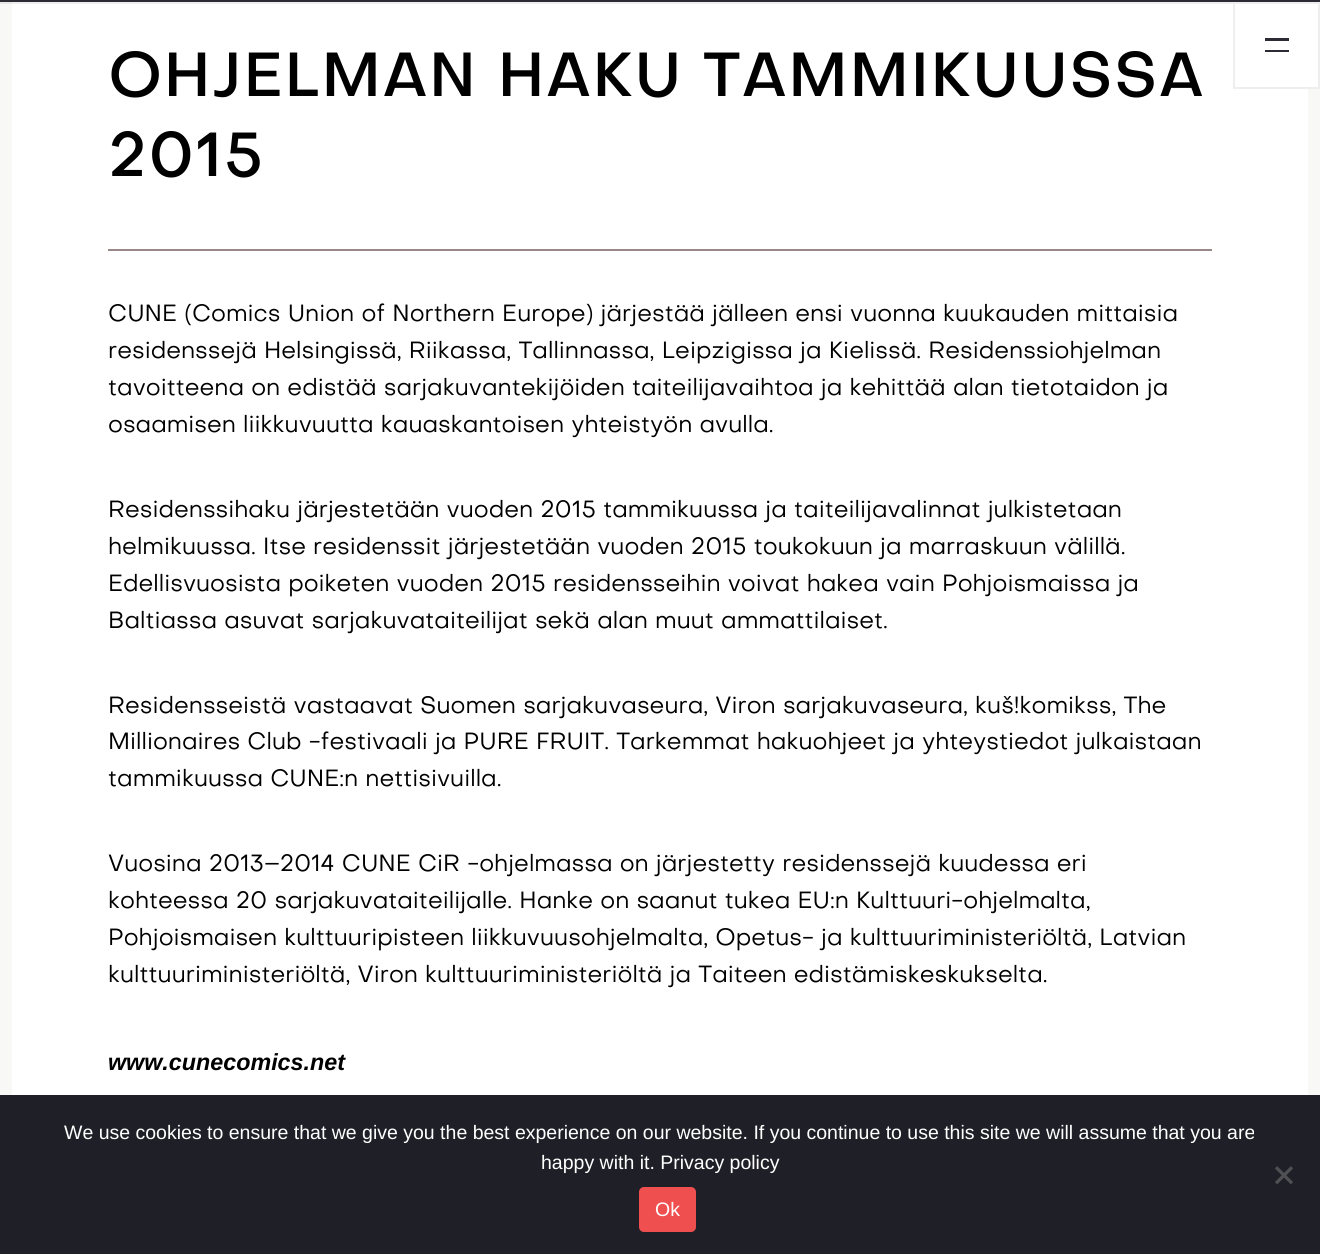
import math
import cairo



def draw_spaced(context, x, y, s, letter, word):
    context.move_to(x, y)
    for ch in s:
        context.show_text(ch)
        context.rel_move_to(letter + word * (ch == ' '), 0)


def rounded_rect(context, x, y, w, h, r):
    context.new_sub_path()
    for i, (u, v) in enumerate([(x + w - r, y + h - r), (x + r, y + h - r), (x + r, y + r), (x + w - r, y + r)]):
        context.arc(u, v, r, i * math.pi / 2, (i + 1) * math.pi / 2)
    context.close_path()


def draw(context):
    context.set_source_rgb(248 / 255, 248 / 255, 247 / 255)
    context.paint()
    context.set_source_rgb(31 / 255, 31 / 255, 39 / 255)
    context.rectangle(0, 1095, 1320, 159)
    context.fill()
    context.set_source_rgb(43 / 255, 43 / 255, 51 / 255)
    context.rectangle(0, 0, 1320, 2)
    context.fill()
    context.set_source_rgb(1, 1, 1)
    context.rectangle(12, 2, 1296, 1093)
    context.fill()
    context.set_source_rgba(0, 0, 0, 0.07)
    context.rectangle(0, 2, 1233, 2)
    context.fill()
    context.set_source_rgb(1, 1, 1)
    context.rectangle(1308, 4, 10, 83)
    context.fill()
    context.rectangle(1234, 3, 85, 85)
    context.set_source_rgb(238 / 255, 238 / 255, 238 / 255)
    context.stroke()
    context.set_source_rgb(43 / 255, 43 / 255, 51 / 255)
    context.rectangle(1265, 38, 24, 3)
    context.fill()
    context.rectangle(1265, 50, 24, 2)
    context.fill()
    context.set_source_rgb(153 / 255, 136 / 255, 136 / 255)
    context.rectangle(108, 249, 1104, 2)
    context.fill()
    context.set_source_rgb(80 / 255, 80 / 255, 84 / 255)
    context.new_path()
    context.move_to(1291, 1166)
    context.line_to(1293, 1168.5)
    context.line_to(1277, 1184.5)
    context.line_to(1275, 1182)
    context.close_path()
    context.fill()
    context.new_path()
    context.move_to(1275, 1168.5)
    context.line_to(1277, 1166)
    context.line_to(1293, 1182)
    context.line_to(1291, 1184.5)
    context.close_path()
    context.fill()
    context.set_source_rgb(239 / 255, 79 / 255, 79 / 255)
    rounded_rect(context, 639, 1187, 57, 45, 5)
    context.fill()
    context.select_font_face("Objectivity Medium")
    context.set_font_size(61.4)
    context.set_source_rgb(0, 0, 0)
    draw_spaced(context, 108, 96, "OHJELMAN HAKU TAMMIKUUSSA", 1.25, 0)
    draw_spaced(context, 108, 176, "2015", 1.25, 0)
    context.select_font_face("Objectivity")
    context.set_font_size(23.3)
    context.move_to(108, 321)
    context.show_text("CUNE (Comics Union of Northern Europe) järjestää jälleen ensi vuonna kuukauden mittaisia")
    context.move_to(108, 358)
    context.show_text("residenssejä Helsingissä, Riikassa, Tallinnassa, Leipzigissa ja Kielissä. Residenssiohjelman")
    context.move_to(108, 395)
    context.show_text("tavoitteena on edistää sarjakuvantekijöiden taiteilijavaihtoa ja kehittää alan tietotaidon ja")
    context.move_to(108, 432)
    context.show_text("osaamisen liikkuvuutta kauaskantoisen yhteistyön avulla.")
    context.move_to(108, 517)
    context.show_text("Residenssihaku järjestetään vuoden 2015 tammikuussa ja taiteilijavalinnat julkistetaan")
    context.move_to(108, 554)
    context.show_text("helmikuussa. Itse residenssit järjestetään vuoden 2015 toukokuun ja marraskuun välillä.")
    context.move_to(108, 591)
    context.show_text("Edellisvuosista poiketen vuoden 2015 residensseihin voivat hakea vain Pohjoismaissa ja")
    context.move_to(108, 628)
    context.show_text("Baltiassa asuvat sarjakuvataiteilijat sekä alan muut ammattilaiset.")
    context.move_to(108, 713)
    context.show_text("Residensseistä vastaavat Suomen sarjakuvaseura, Viron sarjakuvaseura, kuš!komikss, The")
    context.move_to(108, 749)
    context.show_text("Millionaires Club -festivaali ja PURE FRUIT. Tarkemmat hakuohjeet ja yhteystiedot julkaistaan")
    context.move_to(108, 786)
    context.show_text("tammikuussa CUNE:n nettisivuilla.")
    context.move_to(108, 871)
    context.show_text("Vuosina 2013–2014 CUNE CiR -ohjelmassa on järjestetty residenssejä kuudessa eri")
    context.move_to(108, 908)
    context.show_text("kohteessa 20 sarjakuvataiteilijalle. Hanke on saanut tukea EU:n Kulttuuri-ohjelmalta,")
    context.move_to(108, 945)
    context.show_text("Pohjoismaisen kulttuuripisteen liikkuvuusohjelmalta, Opetus- ja kulttuuriministeriöltä, Latvian")
    context.move_to(108, 982)
    context.show_text("kulttuuriministeriöltä, Viron kulttuuriministeriöltä ja Taiteen edistämiskeskukselta.")
    context.select_font_face("Liberation Sans", cairo.FontSlant.ITALIC, cairo.FontWeight.BOLD)
    context.move_to(108, 1070)
    context.show_text("www.cunecomics.net")
    context.select_font_face("Liberation Sans")
    context.set_font_size(19.5)
    context.set_source_rgb(1, 1, 1)
    context.move_to(64, 1139)
    context.show_text("We use cookies to ensure that we give you the best experience on our website. If you continue to use this site we will assume that you are")
    context.move_to(541, 1169)
    context.show_text("happy with it. Privacy policy")
    context.move_to(655, 1216)
    context.show_text("Ok")


surface = cairo.ImageSurface(cairo.Format.RGB24, 1320, 1254)
context = cairo.Context(surface)
options = cairo.FontOptions()
options.set_hint_metrics(cairo.HintMetrics.OFF)
options.set_hint_style(cairo.HintStyle.NONE)
context.set_font_options(options)
context.set_miter_limit(4)
draw(context)
surface.write_to_png("out.png")
